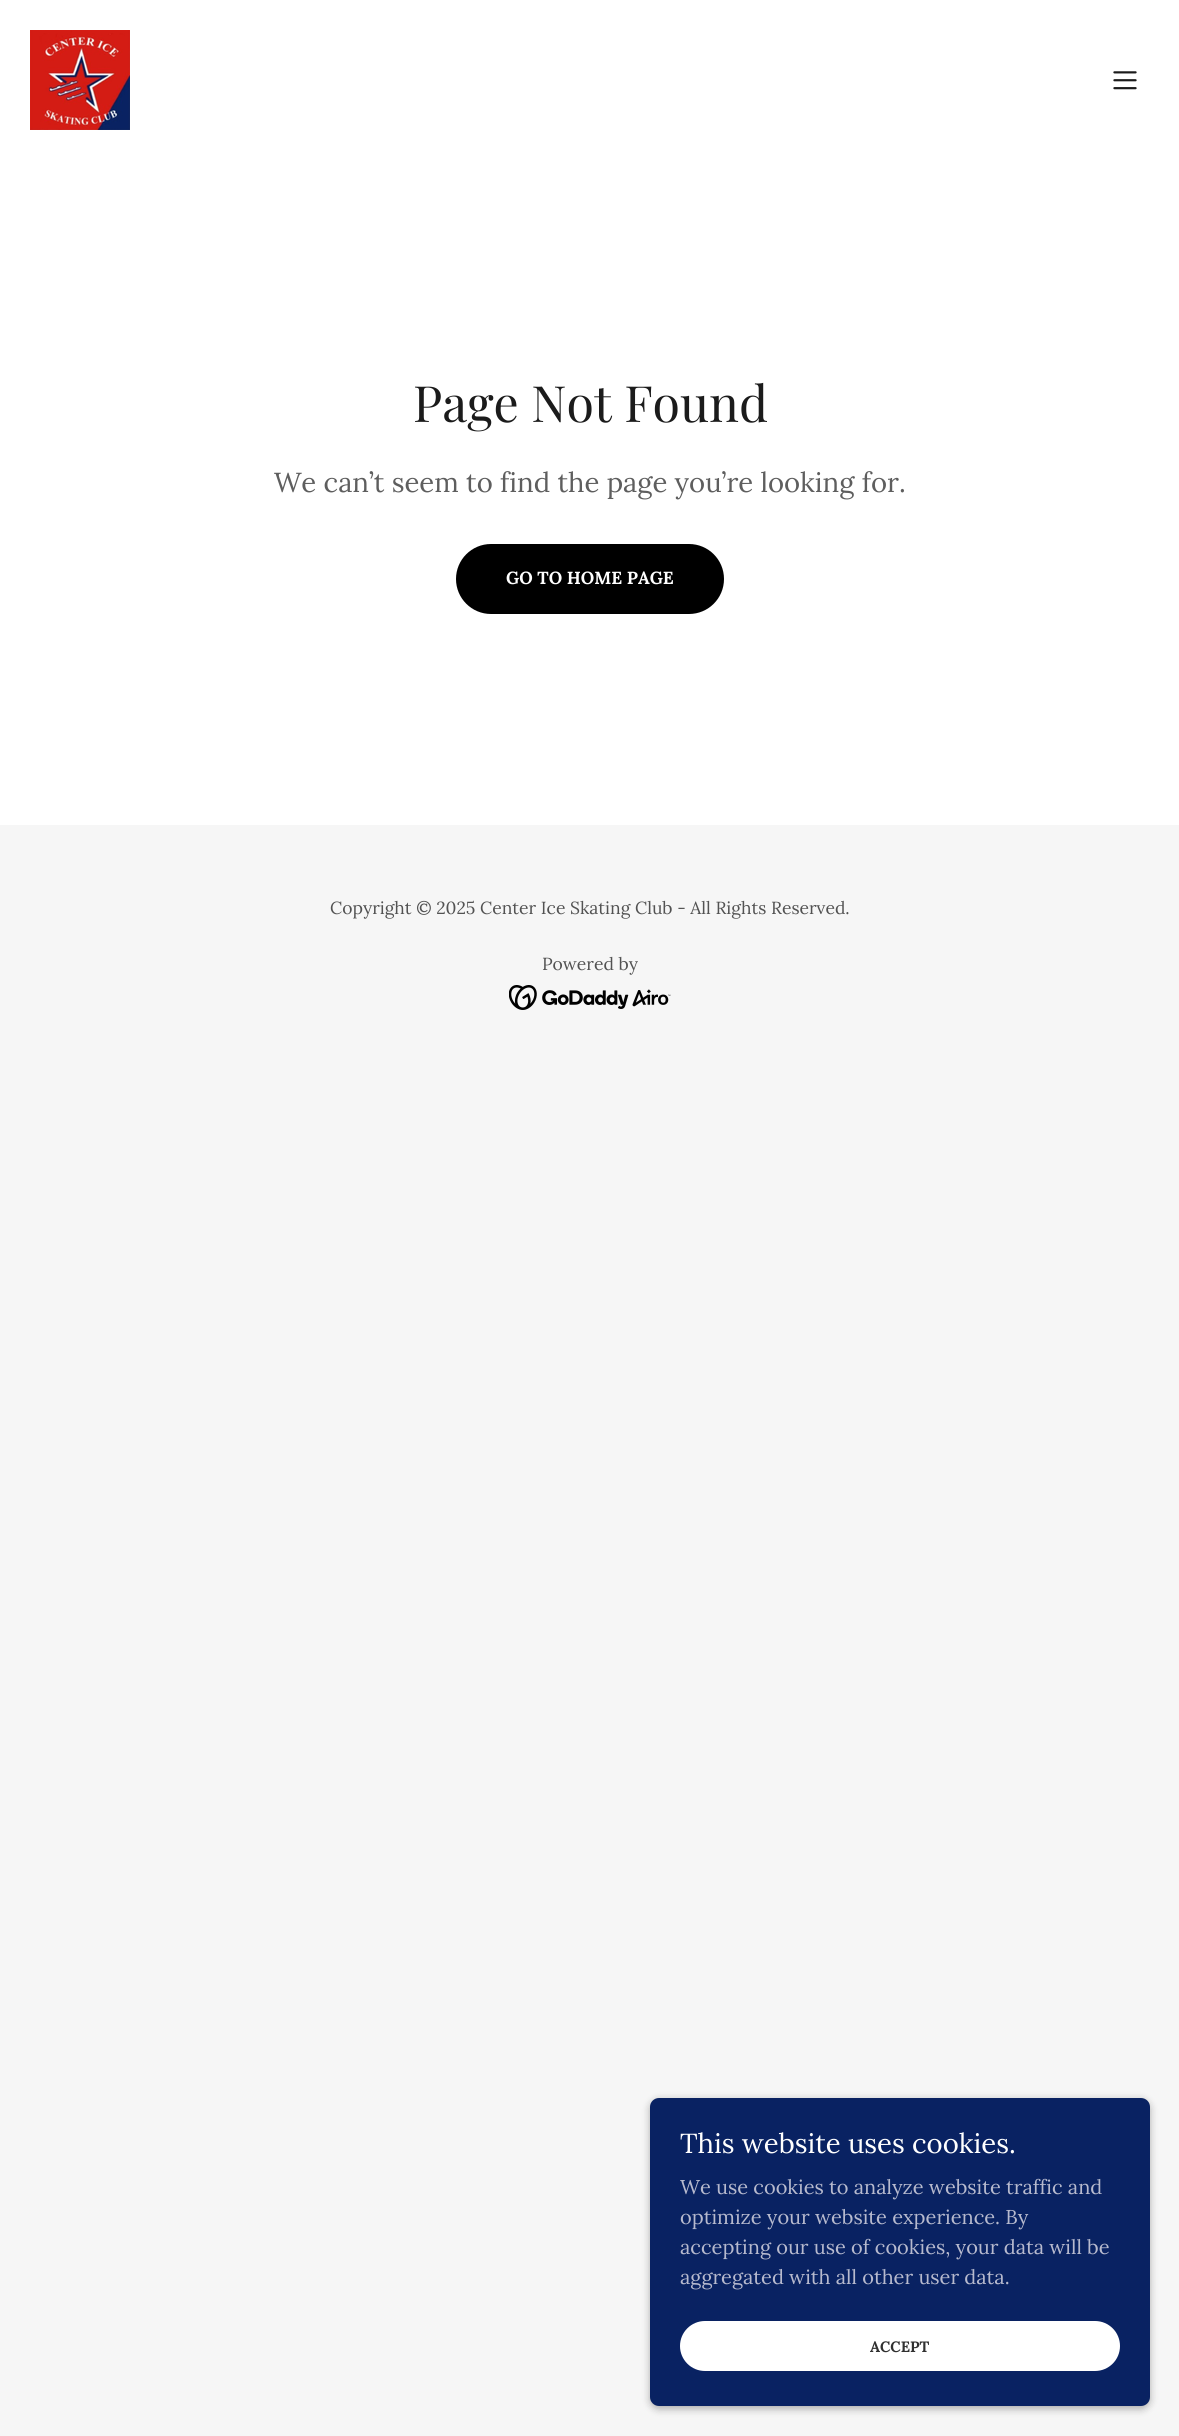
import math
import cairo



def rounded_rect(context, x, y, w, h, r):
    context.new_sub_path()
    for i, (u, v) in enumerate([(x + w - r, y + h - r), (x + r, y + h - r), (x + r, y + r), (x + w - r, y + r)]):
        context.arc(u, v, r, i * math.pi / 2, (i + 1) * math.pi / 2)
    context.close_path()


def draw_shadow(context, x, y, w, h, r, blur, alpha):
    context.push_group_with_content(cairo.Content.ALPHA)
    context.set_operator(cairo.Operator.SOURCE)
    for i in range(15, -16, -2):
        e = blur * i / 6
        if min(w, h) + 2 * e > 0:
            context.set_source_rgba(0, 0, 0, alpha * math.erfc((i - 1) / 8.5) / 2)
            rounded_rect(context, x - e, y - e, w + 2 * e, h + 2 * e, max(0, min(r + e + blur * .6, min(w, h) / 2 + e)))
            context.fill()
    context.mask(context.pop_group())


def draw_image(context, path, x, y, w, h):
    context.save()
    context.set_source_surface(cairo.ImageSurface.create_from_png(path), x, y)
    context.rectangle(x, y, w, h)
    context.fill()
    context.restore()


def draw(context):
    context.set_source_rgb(246 / 255, 246 / 255, 246 / 255)
    context.paint()
    context.set_source_rgb(1, 1, 1)
    context.rectangle(0, 0, 1179, 825)
    context.fill()
    draw_image(context, "images/1.png", 30, 30, 100, 100)
    draw_image(context, "images/2.png", 1113, 71, 24, 19)
    context.set_source_rgb(0, 0, 0)
    rounded_rect(context, 456, 544, 268, 70, 35)
    context.fill()
    draw_image(context, "images/3.png", 509, 985, 162, 25)
    context.set_source_rgb(0, 0, 0)
    draw_shadow(context, 650, 2100, 500, 309, 9, 4, 0.3)
    context.set_source_rgb(9 / 255, 34 / 255, 98 / 255)
    rounded_rect(context, 650, 2098, 500, 308, 9)
    context.fill()
    context.set_source_rgb(1, 1, 1)
    rounded_rect(context, 680, 2321, 440, 50, 25)
    context.fill()
    context.select_font_face("Playfair Display")
    context.set_font_size(50)
    context.set_source_rgb(27 / 255, 27 / 255, 27 / 255)
    context.move_to(413, 422)
    context.show_text("Page Not Found")
    context.select_font_face("Lora")
    context.set_font_size(27.5)
    context.set_source_rgb(94 / 255, 94 / 255, 94 / 255)
    context.move_to(274, 492)
    context.show_text("We can’t seem to find the page you’re looking for.")
    context.select_font_face("Lora", cairo.FontSlant.NORMAL, cairo.FontWeight.BOLD)
    context.set_font_size(17.5)
    context.set_source_rgb(1, 1, 1)
    context.move_to(506, 584)
    context.show_text("GO TO HOME PAGE")
    context.select_font_face("Lora")
    context.set_source_rgb(82 / 255, 82 / 255, 82 / 255)
    context.move_to(330, 914)
    context.show_text("Copyright © 2025 Center Ice Skating Club - All Rights Reserved.")
    context.move_to(542, 970)
    context.show_text("Powered by")
    context.set_font_size(27.5)
    context.set_source_rgb(1, 1, 1)
    context.move_to(680, 2153)
    context.show_text("This website uses cookies.")
    context.set_font_size(20)
    context.set_source_rgb(183 / 255, 186 / 255, 206 / 255)
    context.move_to(680, 2194)
    context.show_text("We use cookies to analyze website traffic and")
    context.move_to(680, 2224)
    context.show_text("optimize your website experience. By")
    context.move_to(680, 2254)
    context.show_text("accepting our use of cookies, your data will be")
    context.move_to(680, 2284)
    context.show_text("aggregated with all other user data.")
    context.select_font_face("Lora", cairo.FontSlant.NORMAL, cairo.FontWeight.BOLD)
    context.set_font_size(15)
    context.set_source_rgb(48 / 255, 48 / 255, 48 / 255)
    context.move_to(870, 2352)
    context.show_text("ACCEPT")


surface = cairo.ImageSurface(cairo.Format.RGB24, 1179, 2436)
context = cairo.Context(surface)
options = cairo.FontOptions()
options.set_hint_metrics(cairo.HintMetrics.OFF)
options.set_hint_style(cairo.HintStyle.NONE)
context.set_font_options(options)
context.set_miter_limit(4)
draw(context)
surface.write_to_png("out.png")
